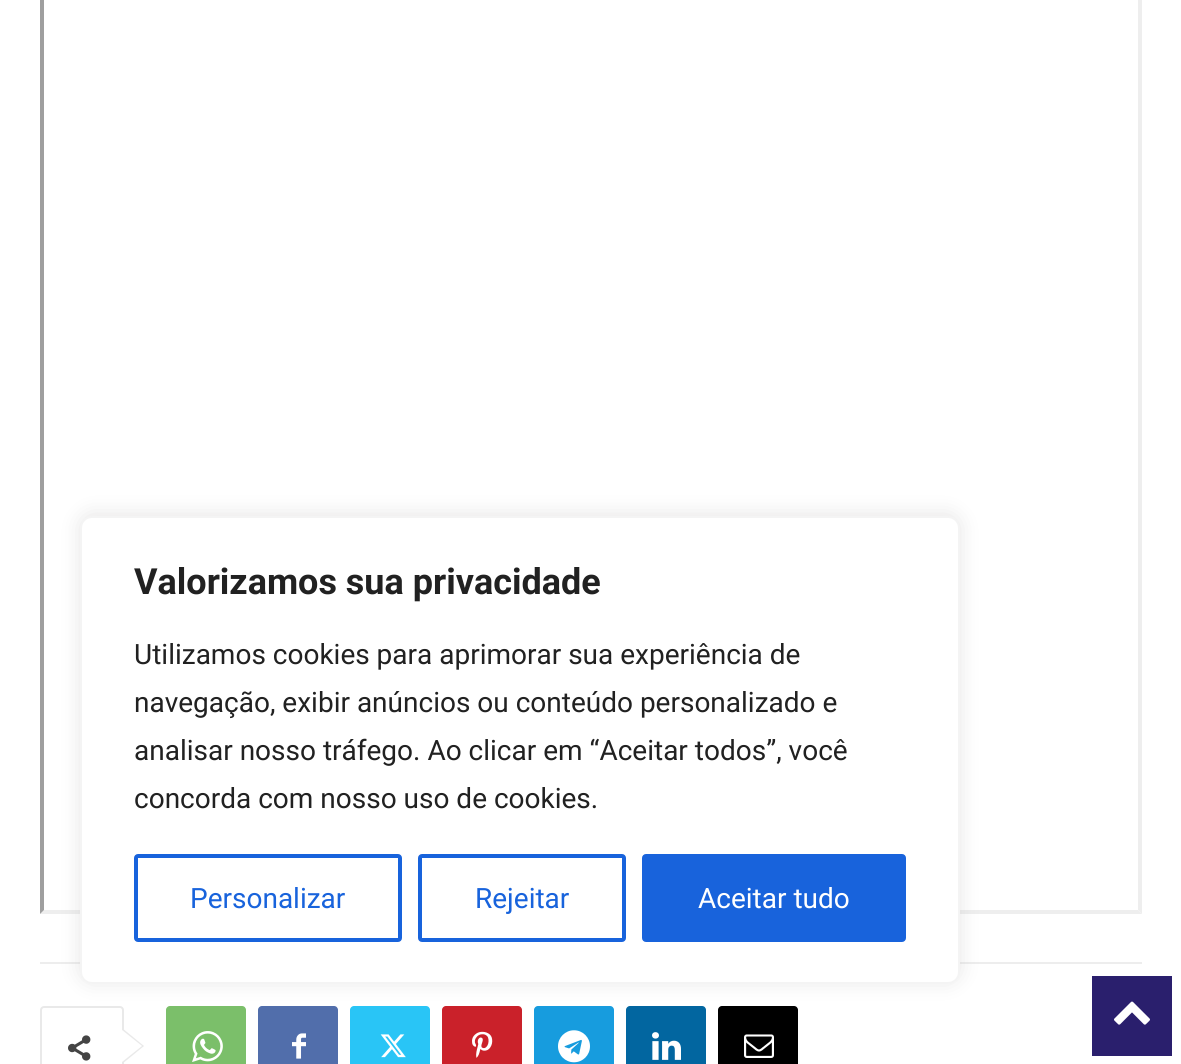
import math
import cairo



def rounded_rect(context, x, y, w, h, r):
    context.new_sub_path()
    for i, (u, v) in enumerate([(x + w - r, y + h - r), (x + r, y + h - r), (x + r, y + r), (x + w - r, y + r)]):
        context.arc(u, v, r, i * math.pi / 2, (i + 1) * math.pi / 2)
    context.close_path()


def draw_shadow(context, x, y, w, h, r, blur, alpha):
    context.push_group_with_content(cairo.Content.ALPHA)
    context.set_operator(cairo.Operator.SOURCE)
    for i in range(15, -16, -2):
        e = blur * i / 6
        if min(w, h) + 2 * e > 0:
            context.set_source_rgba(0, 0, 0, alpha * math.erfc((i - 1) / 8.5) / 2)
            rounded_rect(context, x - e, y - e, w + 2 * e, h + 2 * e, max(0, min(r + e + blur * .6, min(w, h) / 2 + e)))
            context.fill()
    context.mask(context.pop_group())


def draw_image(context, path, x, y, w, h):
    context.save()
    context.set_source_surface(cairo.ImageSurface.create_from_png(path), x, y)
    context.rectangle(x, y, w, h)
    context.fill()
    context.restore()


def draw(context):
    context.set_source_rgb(1, 1, 1)
    context.paint()
    context.set_source_rgb(238 / 255, 238 / 255, 238 / 255)
    context.new_path()
    context.move_to(1142, -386)
    context.line_to(1142, 914)
    context.line_to(1138, 910)
    context.line_to(1138, -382)
    context.close_path()
    context.fill()
    context.new_path()
    context.move_to(1142, 914)
    context.line_to(40, 914)
    context.line_to(44, 910)
    context.line_to(1138, 910)
    context.close_path()
    context.fill()
    context.set_source_rgb(159 / 255, 159 / 255, 159 / 255)
    context.new_path()
    context.move_to(40, 914)
    context.line_to(40, -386)
    context.line_to(44, -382)
    context.line_to(44, 910)
    context.close_path()
    context.fill()
    context.set_source_rgb(237 / 255, 237 / 255, 237 / 255)
    context.rectangle(40, 962, 1102, 2)
    context.fill()
    rounded_rect(context, 41, 1007, 82, 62, 3)
    context.set_source_rgb(233 / 255, 233 / 255, 233 / 255)
    context.stroke()
    context.new_path()
    context.move_to(122, 1064)
    context.line_to(122, 1028)
    context.line_to(144, 1046)
    context.close_path()
    context.fill()
    draw_image(context, "images/1.png", 68, 1035, 23, 26)
    context.set_source_rgb(1, 1, 1)
    context.new_path()
    context.move_to(122, 1062)
    context.line_to(122, 1030)
    context.line_to(142, 1046)
    context.close_path()
    context.fill()
    context.set_source_rgb(123 / 255, 191 / 255, 106 / 255)
    rounded_rect(context, 166, 1006, 80, 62, 4)
    context.fill()
    draw_image(context, "images/2.png", 192, 1031, 31, 31)
    context.set_source_rgb(81 / 255, 110 / 255, 171 / 255)
    rounded_rect(context, 258, 1006, 80, 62, 4)
    context.fill()
    draw_image(context, "images/3.png", 292, 1033, 14, 26)
    context.set_source_rgb(41 / 255, 197 / 255, 246 / 255)
    rounded_rect(context, 350, 1006, 80, 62, 4)
    context.fill()
    draw_image(context, "images/4.png", 380, 1034, 26, 24)
    context.set_source_rgb(202 / 255, 33 / 255, 42 / 255)
    rounded_rect(context, 442, 1006, 80, 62, 4)
    context.fill()
    draw_image(context, "images/5.png", 472, 1031, 21, 27)
    context.set_source_rgb(23 / 255, 156 / 255, 222 / 255)
    rounded_rect(context, 534, 1006, 80, 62, 4)
    context.fill()
    draw_image(context, "images/6.png", 558, 1030, 32, 33)
    context.set_source_rgb(2 / 255, 102 / 255, 160 / 255)
    rounded_rect(context, 626, 1006, 80, 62, 4)
    context.fill()
    draw_image(context, "images/7.png", 652, 1032, 29, 28)
    context.set_source_rgb(0, 0, 0)
    rounded_rect(context, 718, 1006, 80, 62, 4)
    context.fill()
    draw_image(context, "images/8.png", 744, 1034, 30, 24)
    context.set_source_rgb(172 / 255, 171 / 255, 171 / 255)
    draw_shadow(context, 80, 514, 880, 468, 12, 10, 0.3)
    context.set_source_rgb(1, 1, 1)
    rounded_rect(context, 81, 517, 878, 466, 11)
    context.fill_preserve()
    context.set_source_rgb(244 / 255, 244 / 255, 244 / 255)
    context.stroke()
    rounded_rect(context, 136, 856, 264, 84, 2)
    context.set_source_rgb(24 / 255, 99 / 255, 220 / 255)
    context.set_line_width(4)
    context.stroke()
    rounded_rect(context, 420, 856, 204, 84, 2)
    context.stroke()
    rounded_rect(context, 644, 856, 260, 84, 2)
    context.fill_preserve()
    context.stroke()
    context.set_source_rgb(42 / 255, 31 / 255, 109 / 255)
    context.rectangle(1092, 976, 80, 80)
    context.fill()
    draw_image(context, "images/9.png", 1114, 1001, 36, 24)
    context.select_font_face("Roboto", cairo.FontSlant.NORMAL, cairo.FontWeight.BOLD)
    context.set_font_size(36)
    context.set_source_rgb(33 / 255, 33 / 255, 33 / 255)
    context.move_to(134, 594)
    context.show_text("Valorizamos sua privacidade")
    context.select_font_face("Roboto")
    context.set_font_size(28)
    context.move_to(134, 664)
    context.show_text("Utilizamos cookies para aprimorar sua experiência de")
    context.move_to(134, 712)
    context.show_text("navegação, exibir anúncios ou conteúdo personalizado e")
    context.move_to(134, 760)
    context.show_text("analisar nosso tráfego. Ao clicar em “Aceitar todos”, você")
    context.move_to(134, 808)
    context.show_text("concorda com nosso uso de cookies.")
    context.set_source_rgb(24 / 255, 99 / 255, 220 / 255)
    context.move_to(190, 908)
    context.show_text("Personalizar")
    context.move_to(475, 908)
    context.show_text("Rejeitar")
    context.set_source_rgb(1, 1, 1)
    context.move_to(698, 908)
    context.show_text("Aceitar tudo")


surface = cairo.ImageSurface(cairo.Format.RGB24, 1181, 1064)
context = cairo.Context(surface)
options = cairo.FontOptions()
options.set_hint_metrics(cairo.HintMetrics.OFF)
options.set_hint_style(cairo.HintStyle.NONE)
context.set_font_options(options)
context.set_miter_limit(4)
draw(context)
surface.write_to_png("out.png")
